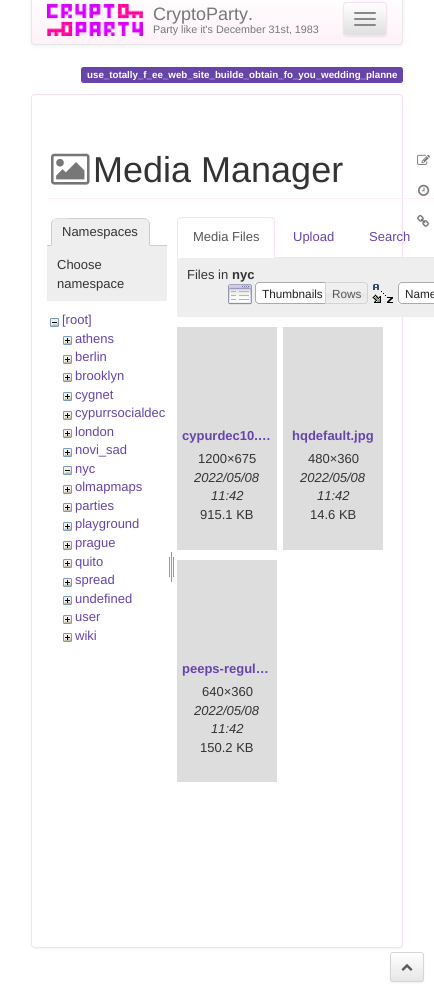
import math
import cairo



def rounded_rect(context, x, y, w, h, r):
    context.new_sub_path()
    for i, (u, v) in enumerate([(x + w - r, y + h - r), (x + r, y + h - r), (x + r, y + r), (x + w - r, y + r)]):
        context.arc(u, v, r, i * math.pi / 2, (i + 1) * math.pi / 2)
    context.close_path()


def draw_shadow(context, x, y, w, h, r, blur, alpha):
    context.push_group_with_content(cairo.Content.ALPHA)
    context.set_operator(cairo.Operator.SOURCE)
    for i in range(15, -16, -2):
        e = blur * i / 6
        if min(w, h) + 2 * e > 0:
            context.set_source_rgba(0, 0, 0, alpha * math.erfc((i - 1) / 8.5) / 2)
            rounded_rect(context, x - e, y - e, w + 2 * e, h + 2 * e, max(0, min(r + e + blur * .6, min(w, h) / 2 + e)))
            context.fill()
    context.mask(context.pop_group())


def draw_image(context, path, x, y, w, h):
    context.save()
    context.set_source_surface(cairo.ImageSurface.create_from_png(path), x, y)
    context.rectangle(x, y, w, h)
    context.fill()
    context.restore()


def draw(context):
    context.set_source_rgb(1, 1, 1)
    context.paint()
    context.set_source_rgb(0, 0, 0)
    draw_shadow(context, 31, -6, 372, 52, 4, 2.5, 0.07)
    context.save()
    rounded_rect(context, 31, -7, 372, 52, 4)
    context.clip()
    gradient = cairo.LinearGradient(217, -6, 217, 44)
    gradient.add_color_stop_rgba(0, 1, 1, 1, 1)
    gradient.add_color_stop_rgba(1, 1, 241 / 255, 249 / 255, 1)
    context.set_source(gradient)
    context.rectangle(31, 0, 372, 44)
    context.fill()
    context.restore()
    rounded_rect(context, 31.5, -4.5, 371, 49, 3.5)
    context.set_source_rgb(231 / 255, 231 / 255, 231 / 255)
    context.set_line_width(1)
    context.stroke()
    draw_image(context, "images/1.png", 47, 4, 96, 32)
    context.set_source_rgb(0, 0, 0)
    draw_shadow(context, 343, 3, 44, 34, 4, 0.5, 0.07)
    context.save()
    rounded_rect(context, 343, 2, 44, 34, 4)
    context.clip()
    gradient = cairo.LinearGradient(365, 3, 365, 35)
    gradient.add_color_stop_rgba(0, 1, 1, 1, 1)
    gradient.add_color_stop_rgba(1, 224 / 255, 224 / 255, 224 / 255, 1)
    context.set_source(gradient)
    context.rectangle(343, 3, 44, 32)
    context.fill()
    context.restore()
    rounded_rect(context, 343.5, 2.5, 43, 33, 3.5)
    context.set_source_rgb(248 / 255, 224 / 255, 240 / 255)
    context.stroke()
    context.set_source_rgb(136 / 255, 136 / 255, 136 / 255)
    rounded_rect(context, 354, 12, 22, 2, 1)
    context.fill()
    rounded_rect(context, 354, 18, 22, 2, 1)
    context.fill()
    rounded_rect(context, 354, 24, 22, 2, 1)
    context.fill()
    context.set_source_rgb(102 / 255, 68 / 255, 170 / 255)
    rounded_rect(context, 81, 67, 322, 16, 2.5)
    context.fill()
    draw_image(context, "images/2.png", 417, 154, 13, 11)
    draw_image(context, "images/3.png", 418, 184, 12, 12)
    draw_image(context, "images/4.png", 417, 215, 12, 12)
    context.set_source_rgb(0, 0, 0)
    draw_shadow(context, 31, 95, 372, 854, 4, 1, 0.05)
    context.set_source_rgb(1, 1, 1)
    rounded_rect(context, 31.5, 94.5, 371, 853, 3.5)
    context.fill_preserve()
    context.set_source_rgb(248 / 255, 224 / 255, 240 / 255)
    context.stroke()
    context.set_source_rgb(1, 240 / 255, 249 / 255)
    context.rectangle(47, 198, 387, 1)
    context.fill()
    draw_image(context, "images/5.png", 51, 153, 39, 32)
    context.set_source_rgb(204 / 255, 204 / 255, 204 / 255)
    context.rectangle(47, 245, 120, 1)
    context.fill()
    context.set_source_rgb(238 / 255, 238 / 255, 238 / 255)
    context.new_path()
    context.move_to(58, 218)
    context.line_to(143, 218)
    context.curve_to(147, 218, 150, 221, 150, 225)
    context.line_to(150, 246)
    context.line_to(51, 246)
    context.line_to(51, 225)
    context.curve_to(51, 221, 54, 218, 58, 218)
    context.close_path()
    context.fill()
    context.set_source_rgb(204 / 255, 204 / 255, 204 / 255)
    context.new_path()
    context.move_to(58, 218)
    context.curve_to(56, 218, 54, 219, 53, 220)
    context.curve_to(57, 217, 71, 219, 72, 219)
    context.line_to(145, 219)
    context.line_to(148, 220)
    context.curve_to(147, 219, 146, 218, 144, 218)
    context.close_path()
    context.fill()
    context.new_path()
    context.move_to(150, 246)
    context.line_to(150, 224)
    context.curve_to(150, 222.5, 149, 221, 148, 220)
    context.line_to(147.5, 220.5)
    context.curve_to(148.5, 221, 149, 222.5, 149, 224)
    context.line_to(149, 245)
    context.close_path()
    context.fill()
    context.set_source_rgb(238 / 255, 238 / 255, 238 / 255)
    context.new_path()
    context.move_to(150, 246)
    context.line_to(149, 245)
    context.line_to(52, 245)
    context.line_to(51, 246)
    context.close_path()
    context.fill()
    context.set_source_rgb(204 / 255, 204 / 255, 204 / 255)
    context.new_path()
    context.move_to(51, 246)
    context.line_to(52, 245)
    context.line_to(52, 224)
    context.curve_to(52, 222.5, 52.5, 221.5, 53.5, 220.5)
    context.line_to(53, 220)
    context.curve_to(51.5, 221, 51, 222.5, 51, 224)
    context.close_path()
    context.fill()
    context.set_source_rgb(238 / 255, 238 / 255, 238 / 255)
    context.rectangle(47, 246, 120, 55)
    context.fill()
    draw_image(context, "images/6.png", 50, 318, 9, 9)
    draw_image(context, "images/7.png", 63, 336, 9, 9)
    draw_image(context, "images/7.png", 63, 355, 9, 9)
    draw_image(context, "images/7.png", 63, 373, 9, 9)
    draw_image(context, "images/7.png", 63, 392, 9, 9)
    draw_image(context, "images/7.png", 63, 411, 9, 9)
    draw_image(context, "images/7.png", 63, 429, 9, 9)
    draw_image(context, "images/7.png", 63, 448, 9, 9)
    draw_image(context, "images/6.png", 63, 466, 9, 9)
    draw_image(context, "images/7.png", 63, 485, 9, 9)
    draw_image(context, "images/7.png", 63, 503, 9, 9)
    draw_image(context, "images/7.png", 63, 522, 9, 9)
    draw_image(context, "images/7.png", 63, 541, 9, 9)
    draw_image(context, "images/7.png", 63, 559, 9, 9)
    draw_image(context, "images/7.png", 63, 578, 9, 9)
    draw_image(context, "images/7.png", 63, 596, 9, 9)
    draw_image(context, "images/7.png", 63, 615, 9, 9)
    draw_image(context, "images/7.png", 63, 633, 9, 9)
    draw_image(context, "images/8.png", 169, 551, 5, 31)
    context.set_source_rgb(248 / 255, 224 / 255, 240 / 255)
    context.rectangle(275, 257, 159, 1)
    context.fill()
    context.new_path()
    context.move_to(181, 217)
    context.line_to(178, 218)
    context.line_to(179, 219)
    context.line_to(181, 218)
    context.line_to(271, 218)
    context.line_to(273, 219)
    context.line_to(274, 218)
    context.line_to(271, 217)
    context.close_path()
    context.fill()
    context.new_path()
    context.move_to(275, 258)
    context.line_to(275, 221)
    context.curve_to(275, 220, 274.5, 219, 274, 218)
    context.line_to(273, 219)
    context.curve_to(274, 219, 274, 220, 274, 221)
    context.line_to(274, 257)
    context.close_path()
    context.fill()
    context.new_path()
    context.move_to(177, 258)
    context.line_to(178, 257)
    context.line_to(178, 221)
    context.curve_to(178, 220, 178, 219, 179, 219)
    context.line_to(178, 218)
    context.curve_to(177.5, 219, 177, 220, 177, 221)
    context.close_path()
    context.fill()
    context.set_source_rgb(238 / 255, 238 / 255, 238 / 255)
    context.rectangle(177, 258, 257, 59)
    context.fill()
    draw_image(context, "images/9.png", 228, 284, 24, 21)
    context.set_source_rgb(1, 1, 1)
    context.rectangle(255, 282, 70, 22)
    context.fill()
    context.new_path()
    context.move_to(259, 282.5)
    context.line_to(329.5, 282.5)
    context.line_to(329.5, 303.5)
    context.line_to(259, 303.5)
    context.curve_to(257, 303.5, 255.5, 302, 255.5, 300)
    context.line_to(255.5, 286)
    context.curve_to(255.5, 284, 257, 282.5, 259, 282.5)
    context.close_path()
    context.set_source_rgb(170 / 255, 170 / 255, 170 / 255)
    context.stroke()
    draw_image(context, "images/10.png", 326, 282, 42, 22)
    context.new_path()
    context.move_to(325.5, 282.5)
    context.line_to(364, 282.5)
    context.curve_to(366, 282.5, 367.5, 284, 367.5, 286)
    context.line_to(367.5, 300)
    context.curve_to(367.5, 302, 366, 303.5, 364, 303.5)
    context.line_to(325.5, 303.5)
    context.close_path()
    context.set_source_rgb(211 / 255, 211 / 255, 211 / 255)
    context.stroke()
    draw_image(context, "images/11.png", 372, 284, 21, 19)
    context.set_source_rgb(1, 1, 1)
    context.rectangle(398, 282, 36, 22)
    context.fill()
    context.new_path()
    context.move_to(402, 282.5)
    context.line_to(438.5, 282.5)
    context.line_to(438.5, 303.5)
    context.line_to(402, 303.5)
    context.curve_to(400, 303.5, 398.5, 302, 398.5, 300)
    context.line_to(398.5, 286)
    context.curve_to(398.5, 284, 400, 282.5, 402, 282.5)
    context.close_path()
    context.set_source_rgb(170 / 255, 170 / 255, 170 / 255)
    context.stroke()
    context.set_source_rgb(221 / 255, 221 / 255, 221 / 255)
    context.rectangle(177, 327, 100, 223)
    context.fill()
    context.rectangle(283, 327, 100, 223)
    context.fill()
    context.rectangle(177, 560, 100, 222)
    context.fill()
    context.set_source_rgb(51 / 255, 51 / 255, 51 / 255)
    draw_shadow(context, 390, 953, 34, 30, 3, 0.5, 0.07)
    context.save()
    rounded_rect(context, 390, 952, 34, 30, 3)
    context.clip()
    gradient = cairo.LinearGradient(407, 953, 407, 981)
    gradient.add_color_stop_rgba(0, 1, 1, 1, 1)
    gradient.add_color_stop_rgba(1, 230 / 255, 230 / 255, 230 / 255, 1)
    context.set_source(gradient)
    context.rectangle(390, 953, 34, 28)
    context.fill()
    context.restore()
    rounded_rect(context, 390.5, 952.5, 33, 29, 2.5)
    context.set_source_rgb(214 / 255, 214 / 255, 214 / 255)
    context.stroke()
    draw_image(context, "images/12.png", 401, 964, 12, 7)
    context.select_font_face("Liberation Sans")
    context.set_font_size(18)
    context.set_source_rgb(119 / 255, 119 / 255, 119 / 255)
    context.move_to(153, 20)
    context.show_text("CryptoParty.")
    context.set_font_size(10.75)
    context.move_to(153, 33)
    context.show_text("Party like it's December 31st, 1983")
    context.select_font_face("Liberation Sans", cairo.FontSlant.NORMAL, cairo.FontWeight.BOLD)
    context.set_font_size(9.75)
    context.set_source_rgb(1, 1, 1)
    context.move_to(87, 78)
    context.show_text("use_totally_f_ee_web_site_builde_obtain_fo_you_wedding_planne")
    context.select_font_face("Liberation Sans")
    context.set_font_size(36)
    context.set_source_rgb(51 / 255, 51 / 255, 51 / 255)
    context.move_to(93, 182)
    context.show_text("Media Manager")
    context.set_font_size(13)
    context.move_to(62, 236)
    context.show_text("Namespaces")
    context.move_to(57, 269)
    context.show_text("Choose")
    context.move_to(57, 288)
    context.show_text("namespace")
    context.set_source_rgb(102 / 255, 68 / 255, 170 / 255)
    context.move_to(62, 324)
    context.show_text("[root]")
    context.move_to(75, 343)
    context.show_text("athens")
    context.move_to(75, 361)
    context.show_text("berlin")
    context.move_to(75, 380)
    context.show_text("brooklyn")
    context.move_to(75, 399)
    context.show_text("cygnet")
    context.move_to(75, 417)
    context.show_text("cypurrsocialdec")
    context.move_to(75, 436)
    context.show_text("london")
    context.move_to(75, 454)
    context.show_text("novi_sad")
    context.move_to(75, 473)
    context.show_text("nyc")
    context.move_to(75, 491)
    context.show_text("olmapmaps")
    context.move_to(75, 510)
    context.show_text("parties")
    context.move_to(75, 528)
    context.show_text("playground")
    context.move_to(75, 547)
    context.show_text("prague")
    context.move_to(75, 566)
    context.show_text("quito")
    context.move_to(75, 584)
    context.show_text("spread")
    context.move_to(75, 603)
    context.show_text("undefined")
    context.move_to(75, 621)
    context.show_text("user")
    context.move_to(75, 640)
    context.show_text("wiki")
    context.set_source_rgb(85 / 255, 85 / 255, 85 / 255)
    context.move_to(193, 241)
    context.show_text("Media Files")
    context.set_source_rgb(102 / 255, 68 / 255, 170 / 255)
    context.move_to(293, 241)
    context.show_text("Upload")
    context.move_to(369, 241)
    context.show_text("Search")
    context.set_source_rgb(51 / 255, 51 / 255, 51 / 255)
    context.move_to(187, 279)
    context.show_text("Files in")
    context.select_font_face("Liberation Sans", cairo.FontSlant.NORMAL, cairo.FontWeight.BOLD)
    context.move_to(232, 279)
    context.show_text("nyc")
    context.select_font_face("Liberation Sans")
    context.set_font_size(11.75)
    context.set_source_rgb(33 / 255, 33 / 255, 33 / 255)
    context.move_to(262, 298)
    context.show_text("Thumbnails")
    context.set_source_rgb(85 / 255, 85 / 255, 85 / 255)
    context.move_to(332, 298)
    context.show_text("Rows")
    context.set_source_rgb(33 / 255, 33 / 255, 33 / 255)
    context.move_to(405, 298)
    context.show_text("Name")
    context.select_font_face("Liberation Sans", cairo.FontSlant.NORMAL, cairo.FontWeight.BOLD)
    context.set_font_size(13)
    context.set_source_rgb(102 / 255, 68 / 255, 170 / 255)
    context.move_to(182, 440)
    context.show_text("cypurdec10.…")
    context.select_font_face("Liberation Sans")
    context.set_source_rgb(51 / 255, 51 / 255, 51 / 255)
    context.move_to(198, 463)
    context.show_text("1200×675")
    context.select_font_face("Liberation Sans", cairo.FontSlant.ITALIC)
    context.move_to(194, 482)
    context.show_text("2022/05/08")
    context.move_to(211, 500)
    context.show_text("11:42")
    context.select_font_face("Liberation Sans")
    context.move_to(200, 519)
    context.show_text("915.1 KB")
    context.select_font_face("Liberation Sans", cairo.FontSlant.NORMAL, cairo.FontWeight.BOLD)
    context.set_source_rgb(102 / 255, 68 / 255, 170 / 255)
    context.move_to(292, 440)
    context.show_text("hqdefault.jpg")
    context.select_font_face("Liberation Sans")
    context.set_source_rgb(51 / 255, 51 / 255, 51 / 255)
    context.move_to(308, 463)
    context.show_text("480×360")
    context.select_font_face("Liberation Sans", cairo.FontSlant.ITALIC)
    context.move_to(300, 482)
    context.show_text("2022/05/08")
    context.move_to(317, 500)
    context.show_text("11:42")
    context.select_font_face("Liberation Sans")
    context.move_to(310, 519)
    context.show_text("14.6 KB")
    context.select_font_face("Liberation Sans", cairo.FontSlant.NORMAL, cairo.FontWeight.BOLD)
    context.set_source_rgb(102 / 255, 68 / 255, 170 / 255)
    context.move_to(182, 673)
    context.show_text("peeps-regul…")
    context.select_font_face("Liberation Sans")
    context.set_source_rgb(51 / 255, 51 / 255, 51 / 255)
    context.move_to(202, 696)
    context.show_text("640×360")
    context.select_font_face("Liberation Sans", cairo.FontSlant.ITALIC)
    context.move_to(194, 715)
    context.show_text("2022/05/08")
    context.move_to(211, 733)
    context.show_text("11:42")
    context.select_font_face("Liberation Sans")
    context.move_to(200, 752)
    context.show_text("150.2 KB")


surface = cairo.ImageSurface(cairo.Format.RGB24, 434, 992)
context = cairo.Context(surface)
options = cairo.FontOptions()
options.set_hint_metrics(cairo.HintMetrics.OFF)
options.set_hint_style(cairo.HintStyle.NONE)
context.set_font_options(options)
context.set_miter_limit(4)
draw(context)
surface.write_to_png("out.png")
